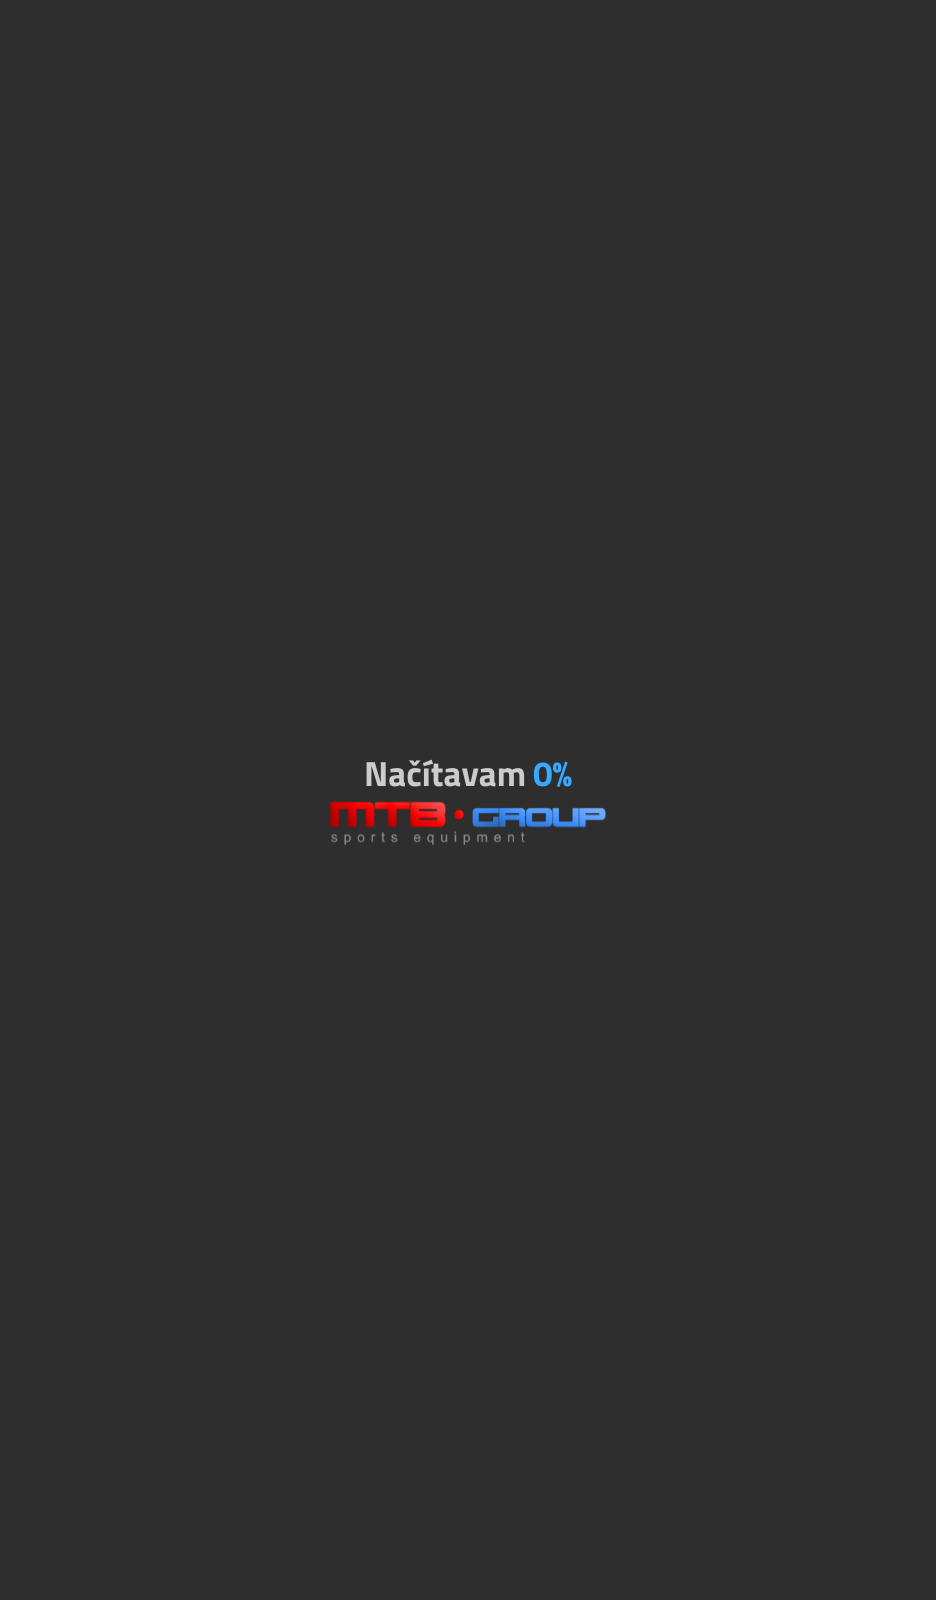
import math
import cairo



def draw_image(context, path, x, y, w, h):
    context.save()
    context.set_source_surface(cairo.ImageSurface.create_from_png(path), x, y)
    context.rectangle(x, y, w, h)
    context.fill()
    context.restore()


def draw(context):
    context.set_source_rgb(46 / 255, 46 / 255, 46 / 255)
    context.paint()
    draw_image(context, "images/1.png", 330, 801, 276, 45)
    context.select_font_face("Titillium Web", cairo.FontSlant.NORMAL, cairo.FontWeight.BOLD)
    context.set_font_size(35)
    context.set_source_rgb(204 / 255, 204 / 255, 204 / 255)
    context.move_to(364, 786)
    context.show_text("Načítavam")
    context.set_source_rgb(56 / 255, 169 / 255, 1)
    context.move_to(533, 786)
    context.show_text("0%")


surface = cairo.ImageSurface(cairo.Format.RGB24, 936, 1600)
context = cairo.Context(surface)
options = cairo.FontOptions()
options.set_hint_metrics(cairo.HintMetrics.OFF)
options.set_hint_style(cairo.HintStyle.NONE)
context.set_font_options(options)
context.set_miter_limit(4)
draw(context)
surface.write_to_png("out.png")
